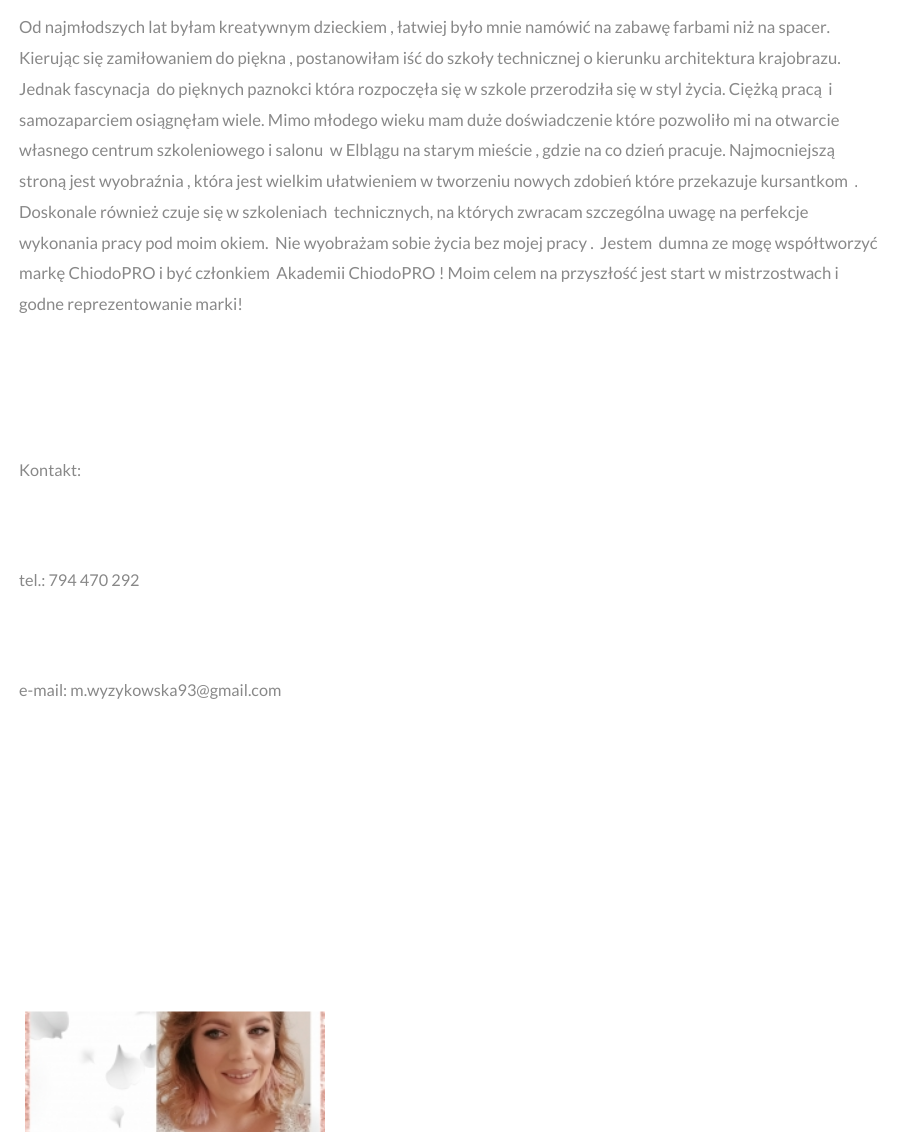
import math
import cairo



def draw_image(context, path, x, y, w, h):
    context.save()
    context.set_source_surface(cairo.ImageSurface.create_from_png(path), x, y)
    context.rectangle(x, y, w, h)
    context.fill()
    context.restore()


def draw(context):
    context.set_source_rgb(1, 1, 1)
    context.paint()
    draw_image(context, "images/1.png", 25, 1011, 300, 121)
    context.select_font_face("Lato")
    context.set_font_size(16.67)
    context.set_source_rgb(136 / 255, 136 / 255, 136 / 255)
    context.move_to(19, 33)
    context.show_text("Od najmłodszych lat byłam kreatywnym dzieckiem , łatwiej było mnie namówić na zabawę farbami niż na spacer.")
    context.move_to(19, 64)
    context.show_text("Kierując się zamiłowaniem do piękna , postanowiłam iść do szkoły technicznej o kierunku architektura krajobrazu.")
    context.move_to(19, 95)
    context.show_text("Jednak fascynacja  do pięknych paznokci która rozpoczęła się w szkole przerodziła się w styl życia. Ciężką pracą  i")
    context.move_to(19, 126)
    context.show_text("samozaparciem osiągnęłam wiele. Mimo młodego wieku mam duże doświadczenie które pozwoliło mi na otwarcie")
    context.move_to(19, 156)
    context.show_text("własnego centrum szkoleniowego i salonu  w Elblągu na starym mieście , gdzie na co dzień pracuje. Najmocniejszą")
    context.move_to(19, 187)
    context.show_text("stroną jest wyobraźnia , która jest wielkim ułatwieniem w tworzeniu nowych zdobień które przekazuje kursantkom  .")
    context.move_to(19, 218)
    context.show_text("Doskonale również czuje się w szkoleniach  technicznych, na których zwracam szczególna uwagę na perfekcje")
    context.move_to(19, 249)
    context.show_text("wykonania pracy pod moim okiem.  Nie wyobrażam sobie życia bez mojej pracy .  Jestem  dumna ze mogę współtworzyć")
    context.move_to(19, 279)
    context.show_text("markę ChiodoPRO i być członkiem  Akademii ChiodoPRO ! Moim celem na przyszłość jest start w mistrzostwach i")
    context.move_to(19, 310)
    context.show_text("godne reprezentowanie marki!")
    context.set_font_size(16.25)
    context.move_to(19, 476)
    context.show_text("Kontakt:")
    context.move_to(19, 586)
    context.show_text("tel.: 794 470 292")
    context.move_to(19, 696)
    context.show_text("e-mail: m.wyzykowska93@gmail.com")


surface = cairo.ImageSurface(cairo.Format.RGB24, 902, 1132)
context = cairo.Context(surface)
options = cairo.FontOptions()
options.set_hint_metrics(cairo.HintMetrics.OFF)
options.set_hint_style(cairo.HintStyle.NONE)
context.set_font_options(options)
context.set_miter_limit(4)
draw(context)
surface.write_to_png("out.png")
